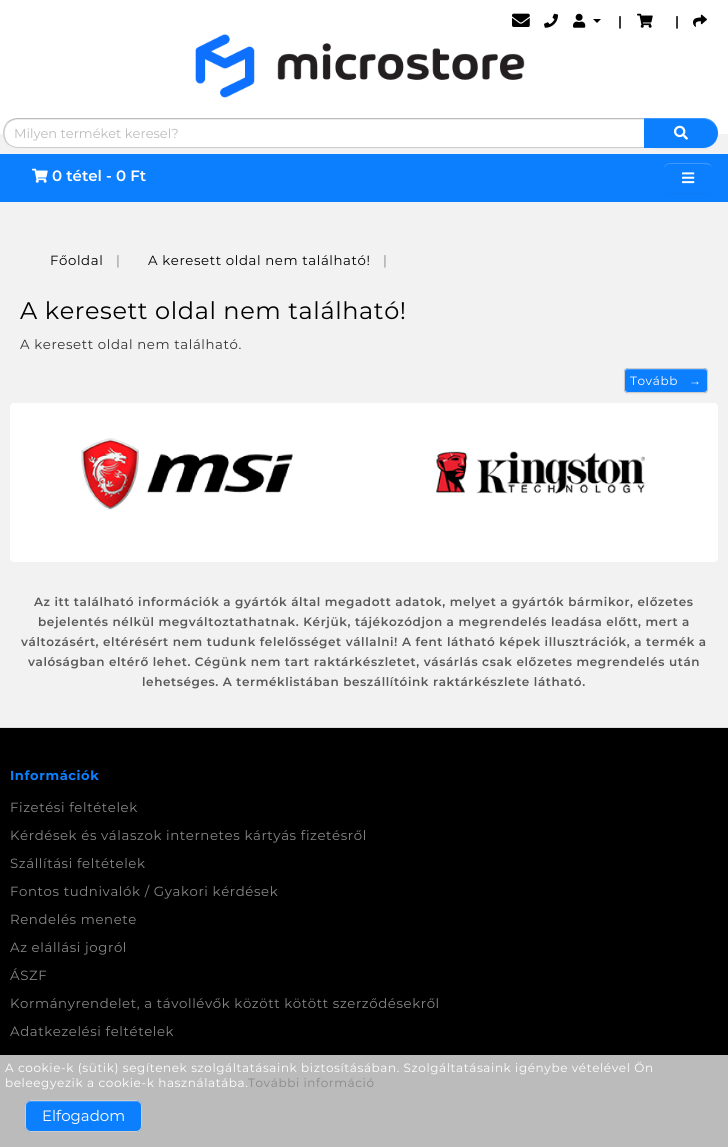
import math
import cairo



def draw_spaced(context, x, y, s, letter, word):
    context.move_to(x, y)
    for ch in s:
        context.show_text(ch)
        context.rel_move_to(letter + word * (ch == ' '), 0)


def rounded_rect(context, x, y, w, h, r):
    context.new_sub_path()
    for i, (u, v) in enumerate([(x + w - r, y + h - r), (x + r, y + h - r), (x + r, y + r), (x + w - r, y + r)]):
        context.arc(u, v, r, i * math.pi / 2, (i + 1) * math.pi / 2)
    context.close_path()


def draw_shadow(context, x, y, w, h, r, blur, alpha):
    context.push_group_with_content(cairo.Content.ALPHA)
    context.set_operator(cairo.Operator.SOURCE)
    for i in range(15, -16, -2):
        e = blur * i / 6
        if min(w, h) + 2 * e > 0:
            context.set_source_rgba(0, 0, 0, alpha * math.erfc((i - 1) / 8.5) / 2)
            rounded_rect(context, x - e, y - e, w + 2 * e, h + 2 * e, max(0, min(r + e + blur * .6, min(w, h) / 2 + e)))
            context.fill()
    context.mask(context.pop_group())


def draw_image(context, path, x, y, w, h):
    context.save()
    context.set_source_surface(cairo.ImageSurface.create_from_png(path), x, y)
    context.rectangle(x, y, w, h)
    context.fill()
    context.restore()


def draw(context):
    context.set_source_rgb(242 / 255, 242 / 255, 242 / 255)
    context.paint()
    context.set_source_rgb(1, 1, 1)
    context.rectangle(0, 0, 728, 134)
    context.fill()
    draw_image(context, "images/1.png", 512, 13, 18, 14)
    draw_image(context, "images/2.png", 544, 13, 14, 15)
    draw_image(context, "images/3.png", 573, 13, 13, 15)
    context.set_source_rgb(0, 0, 0)
    context.new_path()
    context.move_to(593, 19)
    context.line_to(601, 19)
    context.line_to(597, 23)
    context.close_path()
    context.fill()
    draw_image(context, "images/4.png", 637, 13, 16, 15)
    draw_image(context, "images/5.png", 693, 14, 14, 13)
    draw_image(context, "images/6.png", 195, 34, 330, 64)
    context.set_source_rgb(1, 1, 1)
    context.new_path()
    context.move_to(18, 118)
    context.line_to(645, 118)
    context.line_to(645, 148)
    context.line_to(18, 148)
    context.curve_to(9.5, 148, 3, 141.5, 3, 133)
    context.curve_to(3, 124.5, 9.5, 118, 18, 118)
    context.close_path()
    context.fill()
    context.set_source_rgb(236 / 255, 236 / 255, 236 / 255)
    context.new_path()
    context.move_to(18, 120)
    context.line_to(644, 120)
    context.line_to(644, 119)
    context.line_to(15, 119)
    context.curve_to(7, 121, 2, 131, 5, 139)
    context.curve_to(3, 130, 7, 120, 18, 120)
    context.close_path()
    context.fill()
    context.set_source_rgb(187 / 255, 187 / 255, 187 / 255)
    context.new_path()
    context.move_to(18, 118)
    context.curve_to(13, 118, 10, 120, 7, 122)
    context.line_to(8, 123)
    context.curve_to(10, 121, 14, 119, 18, 119)
    context.line_to(644, 119)
    context.line_to(645, 118)
    context.close_path()
    context.fill()
    context.set_source_rgb(204 / 255, 204 / 255, 204 / 255)
    context.new_path()
    context.move_to(645, 148)
    context.line_to(644, 147)
    context.line_to(18, 147)
    context.curve_to(14, 147, 10, 145, 8, 143)
    context.line_to(7, 144)
    context.curve_to(10, 146, 13, 148, 18, 148)
    context.close_path()
    context.fill()
    context.new_path()
    context.move_to(3, 133)
    context.curve_to(3, 129, 4.5, 125, 7, 122)
    context.line_to(8, 123)
    context.curve_to(3.5, 128.5, 3.5, 137.5, 8, 143)
    context.line_to(7, 144)
    context.curve_to(4.5, 141, 3, 137, 3, 133)
    context.close_path()
    context.fill()
    context.set_source_rgb(0, 0, 0)
    draw_shadow(context, 644, 119, 74, 30, 15, 1, 0.05)
    context.set_source_rgb(12 / 255, 127 / 255, 1)
    context.new_path()
    context.move_to(644, 118)
    context.line_to(703, 118)
    context.curve_to(711.5, 118, 718, 124.5, 718, 133)
    context.curve_to(718, 141.5, 711.5, 148, 703, 148)
    context.line_to(644, 148)
    context.close_path()
    context.fill()
    context.set_source_rgba(1, 1, 1, 0.2)
    context.new_path()
    context.move_to(644, 119)
    context.line_to(703, 119)
    context.curve_to(711, 119, 718, 126, 718, 134)
    context.line_to(718, 133)
    context.curve_to(718, 125, 711, 118, 703, 118)
    context.line_to(644, 118)
    context.close_path()
    context.fill()
    draw_image(context, "images/7.png", 674, 125, 14, 15)
    context.set_source_rgb(12 / 255, 127 / 255, 1)
    context.rectangle(0, 154, 728, 48)
    context.fill()
    draw_image(context, "images/8.png", 32, 168, 16, 15)
    context.set_source_rgb(0, 0, 0)
    draw_shadow(context, 664, 164, 48, 30, 6, 1, 0.05)
    context.set_source_rgb(12 / 255, 127 / 255, 1)
    rounded_rect(context, 664, 163, 48, 30, 6)
    context.fill()
    context.set_source_rgb(61 / 255, 153 / 255, 1)
    context.new_path()
    context.move_to(670, 164)
    context.line_to(700, 164)
    context.curve_to(709, 164, 712, 165, 712, 169)
    context.curve_to(712, 162, 705, 163, 700, 163)
    context.line_to(676, 163)
    context.curve_to(670, 163, 664, 162, 664, 170)
    context.curve_to(664, 167, 666, 164, 670, 164)
    context.close_path()
    context.fill()
    draw_image(context, "images/9.png", 682, 172, 13, 12)
    context.set_source_rgb(0, 0, 0)
    draw_shadow(context, 624, 369, 84, 25, 4, 1, 0.05)
    context.set_source_rgb(12 / 255, 127 / 255, 1)
    rounded_rect(context, 624, 368, 84, 25, 4)
    context.fill()
    context.set_source_rgb(61 / 255, 153 / 255, 1)
    context.new_path()
    context.move_to(628, 370)
    context.line_to(704, 370)
    context.curve_to(706, 370, 707, 371, 707, 373)
    context.curve_to(707, 366, 695, 369, 691, 369)
    context.line_to(641, 369)
    context.curve_to(637, 369, 625, 366, 625, 373)
    context.curve_to(625, 371, 626, 370, 628, 370)
    context.close_path()
    context.fill()
    rounded_rect(context, 624.5, 368.5, 83, 24, 3.5)
    context.set_source_rgb(204 / 255, 204 / 255, 204 / 255)
    context.set_line_width(1)
    context.stroke()
    context.set_source_rgb(1, 1, 1)
    rounded_rect(context, 10, 403, 708, 159, 4)
    context.fill()
    draw_image(context, "images/10.png", 81, 438, 212, 72)
    draw_image(context, "images/11.png", 436, 451, 209, 43)
    context.set_source_rgb(0, 0, 0)
    context.rectangle(0, 728, 728, 327)
    context.fill()
    context.set_source_rgb(219 / 255, 222 / 255, 225 / 255)
    context.rectangle(0, 727, 728, 1)
    context.fill()
    context.set_source_rgb(187 / 255, 187 / 255, 187 / 255)
    context.rectangle(0, 1055, 728, 92)
    context.fill()
    context.set_source_rgb(12 / 255, 127 / 255, 1)
    rounded_rect(context, 25, 1100, 117, 32, 6)
    context.fill()
    context.set_source_rgb(61 / 255, 153 / 255, 1)
    context.new_path()
    context.move_to(31, 1102)
    context.line_to(136, 1102)
    context.curve_to(139, 1102, 141, 1104, 141, 1107)
    context.curve_to(141, 1097, 123, 1101, 118, 1101)
    context.line_to(48, 1101)
    context.curve_to(44, 1101, 26, 1097, 26, 1107)
    context.curve_to(26, 1104, 28, 1102, 31, 1102)
    context.close_path()
    context.fill()
    rounded_rect(context, 25.5, 1100.5, 116, 31, 5.5)
    context.set_source_rgb(204 / 255, 204 / 255, 204 / 255)
    context.stroke()
    context.select_font_face("Montserrat SemiBold")
    context.set_font_size(13.3)
    context.set_source_rgb(0, 0, 0)
    draw_spaced(context, 618, 26, "|", 0.6, 0)
    draw_spaced(context, 675, 26, "|", 0.6, 0)
    context.select_font_face("Montserrat")
    context.set_font_size(13)
    context.set_source_rgb(187 / 255, 187 / 255, 187 / 255)
    context.move_to(14, 138)
    context.show_text("Milyen terméket keresel?")
    context.select_font_face("Montserrat SemiBold")
    context.set_font_size(15)
    context.set_source_rgb(1, 1, 1)
    context.move_to(52, 181)
    context.show_text("0 tétel - 0 Ft")
    context.select_font_face("Montserrat")
    context.set_font_size(13.3)
    context.set_source_rgb(0, 0, 0)
    draw_spaced(context, 50, 265, "Főoldal", 0.6, 0)
    context.set_source_rgb(128 / 255, 128 / 255, 128 / 255)
    draw_spaced(context, 116, 265, "|", 0.6, 0)
    context.set_source_rgb(0, 0, 0)
    draw_spaced(context, 148, 265, "A keresett oldal nem található!", 0.6, 0)
    context.set_source_rgb(128 / 255, 128 / 255, 128 / 255)
    draw_spaced(context, 383, 265, "|", 0.6, 0)
    context.set_font_size(24)
    context.set_source_rgb(0, 0, 0)
    draw_spaced(context, 20, 319, "A keresett oldal nem található!", 0.6, 0)
    context.set_font_size(13.3)
    context.set_source_rgb(51 / 255, 51 / 255, 51 / 255)
    draw_spaced(context, 20, 349, "A keresett oldal nem található.", 0.6, 0)
    context.set_font_size(12)
    context.set_source_rgb(1, 1, 1)
    draw_spaced(context, 630, 385, "Tovább", 0.6, 0)
    context.select_font_face("Liberation Serif")
    draw_spaced(context, 689, 385, "→", 0.6, 0)
    context.select_font_face("Montserrat SemiBold")
    context.set_source_rgb(89 / 255, 89 / 255, 89 / 255)
    draw_spaced(context, 34, 606, "Az itt található információk a gyártók által megadott adatok, melyet a gyártók bármikor, előzetes", 0.6, 0)
    draw_spaced(context, 38, 626, "bejelentés nélkül megváltoztathatnak. Kérjük, tájékozódjon a megrendelés leadása előtt, mert a", 0.6, 0)
    draw_spaced(context, 21, 646, "változásért, eltérésért nem tudunk felelősséget vállalni! A fent látható képek illusztrációk, a termék a", 0.6, 0)
    draw_spaced(context, 28, 666, "valóságban eltérő lehet. Cégünk nem tart raktárkészletet, vásárlás csak előzetes megrendelés után", 0.6, 0)
    draw_spaced(context, 142, 686, "lehetséges. A terméklistában beszállítóink raktárkészlete látható.", 0.6, 0)
    context.select_font_face("Montserrat", cairo.FontSlant.NORMAL, cairo.FontWeight.BOLD)
    context.set_font_size(13)
    context.set_source_rgb(12 / 255, 127 / 255, 1)
    draw_spaced(context, 10, 780, "Információk", 0.6, 0)
    context.select_font_face("Montserrat")
    context.set_font_size(13.3)
    context.set_source_rgb(136 / 255, 136 / 255, 136 / 255)
    draw_spaced(context, 10, 812, "Fizetési feltételek", 0.6, 0)
    draw_spaced(context, 10, 840, "Kérdések és válaszok internetes kártyás fizetésről", 0.6, 0)
    draw_spaced(context, 10, 868, "Szállítási feltételek", 0.6, 0)
    draw_spaced(context, 10, 896, "Fontos tudnivalók / Gyakori kérdések", 0.6, 0)
    draw_spaced(context, 10, 924, "Rendelés menete", 0.6, 0)
    draw_spaced(context, 10, 952, "Az elállási jogról", 0.6, 0)
    draw_spaced(context, 10, 980, "ÁSZF", 0.6, 0)
    draw_spaced(context, 10, 1008, "Kormányrendelet, a távollévők között kötött szerződésekről", 0.6, 0)
    draw_spaced(context, 10, 1036, "Adatkezelési feltételek", 0.6, 0)
    context.set_font_size(12)
    context.set_source_rgb(1, 1, 1)
    draw_spaced(context, 5, 1072, "A cookie-k (sütik) segítenek szolgáltatásaink biztosításában. Szolgáltatásaink igénybe vételével Ön", 0.6, 0)
    draw_spaced(context, 5, 1087, "beleegyezik a cookie-k használatába.", 0.6, 0)
    context.set_source_rgb(136 / 255, 136 / 255, 136 / 255)
    draw_spaced(context, 248, 1087, "További információ", 0.6, 0)
    context.set_font_size(15)
    context.set_source_rgb(1, 1, 1)
    context.move_to(42, 1121)
    context.show_text("Elfogadom")


surface = cairo.ImageSurface(cairo.Format.RGB24, 728, 1147)
context = cairo.Context(surface)
options = cairo.FontOptions()
options.set_hint_metrics(cairo.HintMetrics.OFF)
options.set_hint_style(cairo.HintStyle.NONE)
context.set_font_options(options)
context.set_miter_limit(4)
draw(context)
surface.write_to_png("out.png")
